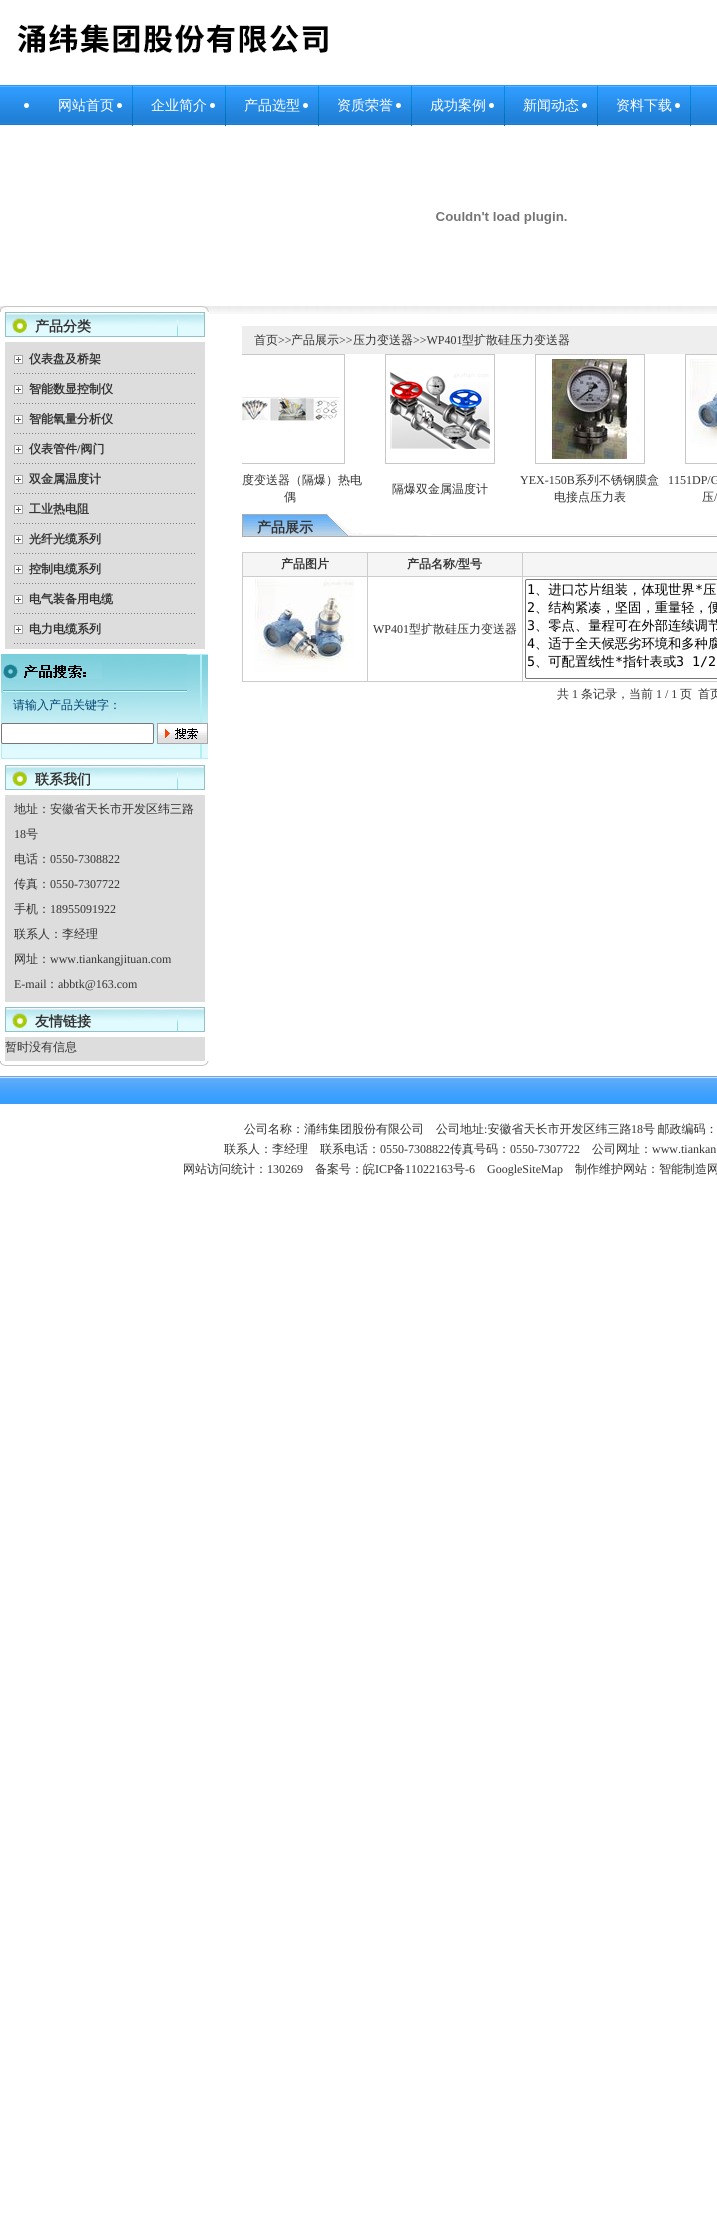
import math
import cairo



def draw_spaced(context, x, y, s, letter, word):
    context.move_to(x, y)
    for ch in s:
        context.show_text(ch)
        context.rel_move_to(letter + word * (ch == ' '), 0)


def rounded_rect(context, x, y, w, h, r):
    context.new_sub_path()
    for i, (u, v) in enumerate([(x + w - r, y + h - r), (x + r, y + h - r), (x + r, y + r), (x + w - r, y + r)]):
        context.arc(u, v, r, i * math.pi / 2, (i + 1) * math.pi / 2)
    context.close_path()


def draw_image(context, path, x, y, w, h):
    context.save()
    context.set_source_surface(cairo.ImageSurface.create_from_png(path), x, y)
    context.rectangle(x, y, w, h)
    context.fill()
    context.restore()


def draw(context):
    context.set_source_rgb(1, 1, 1)
    context.paint()
    draw_image(context, "images/1.png", 17, 24, 311, 29)
    draw_image(context, "images/2.png", 0, 85, 717, 40)
    draw_image(context, "images/3.png", 132, 86, 1, 40)
    context.set_source_rgb(1, 1, 1)
    context.arc(26.5, 105.5, 2.5, 0, 2 * math.pi)
    context.fill()
    draw_image(context, "images/3.png", 225, 86, 1, 40)
    context.arc(119.5, 105.5, 2.5, 0, 2 * math.pi)
    context.fill()
    draw_image(context, "images/3.png", 318, 86, 1, 40)
    context.arc(212.5, 105.5, 2.5, 0, 2 * math.pi)
    context.fill()
    draw_image(context, "images/3.png", 411, 86, 1, 40)
    context.arc(305.5, 105.5, 2.5, 0, 2 * math.pi)
    context.fill()
    draw_image(context, "images/3.png", 504, 86, 1, 40)
    context.arc(398.5, 105.5, 2.5, 0, 2 * math.pi)
    context.fill()
    draw_image(context, "images/3.png", 597, 86, 1, 40)
    context.arc(491.5, 105.5, 2.5, 0, 2 * math.pi)
    context.fill()
    draw_image(context, "images/3.png", 690, 86, 1, 40)
    context.arc(584.5, 105.5, 2.5, 0, 2 * math.pi)
    context.fill()
    context.arc(677.5, 105.5, 2.5, 0, 2 * math.pi)
    context.fill()
    draw_image(context, "images/4.png", 436, 212, 131, 12)
    draw_image(context, "images/5.png", 0, 306, 209, 6)
    draw_image(context, "images/6.png", 5, 312, 200, 25)
    context.set_source_rgb(221 / 255, 221 / 255, 221 / 255)
    context.rectangle(5, 342, 200, 307)
    context.fill()
    draw_image(context, "images/7.png", 14, 373, 181, 1)
    draw_image(context, "images/8.png", 14, 355, 9, 9)
    draw_image(context, "images/7.png", 14, 403, 181, 1)
    draw_image(context, "images/8.png", 14, 385, 9, 9)
    draw_image(context, "images/7.png", 14, 433, 181, 1)
    draw_image(context, "images/8.png", 14, 415, 9, 9)
    draw_image(context, "images/7.png", 14, 463, 181, 1)
    draw_image(context, "images/8.png", 14, 445, 9, 9)
    draw_image(context, "images/7.png", 14, 493, 181, 1)
    draw_image(context, "images/8.png", 14, 475, 9, 9)
    draw_image(context, "images/7.png", 14, 523, 181, 1)
    draw_image(context, "images/8.png", 14, 505, 9, 9)
    draw_image(context, "images/7.png", 14, 553, 181, 1)
    draw_image(context, "images/8.png", 14, 535, 9, 9)
    draw_image(context, "images/7.png", 14, 583, 181, 1)
    draw_image(context, "images/8.png", 14, 565, 9, 9)
    draw_image(context, "images/7.png", 14, 613, 181, 1)
    draw_image(context, "images/8.png", 14, 595, 9, 9)
    draw_image(context, "images/7.png", 14, 643, 181, 1)
    draw_image(context, "images/8.png", 14, 625, 9, 9)
    draw_image(context, "images/9.png", 1, 654, 207, 105)
    draw_image(context, "images/10.png", 1, 654, 186, 39)
    context.set_source_rgb(1, 1, 1)
    rounded_rect(context, 1.5, 723.5, 152, 20, 1.5)
    context.fill_preserve()
    context.set_source_rgb(118 / 255, 118 / 255, 118 / 255)
    context.set_line_width(1)
    context.stroke()
    draw_image(context, "images/11.png", 157, 723, 51, 21)
    draw_image(context, "images/6.png", 5, 765, 200, 25)
    context.set_source_rgb(221 / 255, 221 / 255, 221 / 255)
    context.rectangle(5, 795, 200, 207)
    context.fill()
    draw_image(context, "images/6.png", 5, 1007, 200, 25)
    context.rectangle(5, 1037, 200, 24)
    context.fill()
    draw_image(context, "images/12.png", 0, 1061, 209, 5)
    draw_image(context, "images/13.png", 209, 306, 508, 8)
    context.set_source_rgb(238 / 255, 238 / 255, 238 / 255)
    context.rectangle(242, 326, 475, 28)
    context.fill()
    context.save()
    context.rectangle(242, 354, 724, 160)
    context.clip()
    context.rectangle(235.5, 354.5, 109, 109)
    context.set_source_rgb(199 / 255, 199 / 255, 199 / 255)
    context.stroke()
    context.restore()
    draw_image(context, "images/14.png", 242, 397, 98, 24)
    context.rectangle(385.5, 354.5, 109, 109)
    context.set_source_rgb(199 / 255, 199 / 255, 199 / 255)
    context.stroke()
    draw_image(context, "images/15.png", 390, 372, 100, 77)
    context.rectangle(535.5, 354.5, 109, 109)
    context.stroke()
    draw_image(context, "images/16.png", 552, 359, 75, 100)
    context.rectangle(685.5, 354.5, 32, 109)
    context.stroke()
    draw_image(context, "images/17.png", 690, 359, 27, 88)
    draw_image(context, "images/18.png", 242, 514, 475, 23)
    context.set_source_rgb(204 / 255, 204 / 255, 204 / 255)
    context.rectangle(242, 552, 475, 130)
    context.fill()
    context.set_source_rgb(245 / 255, 245 / 255, 245 / 255)
    context.rectangle(243, 553, 124, 23)
    context.fill()
    context.rectangle(368, 553, 154, 23)
    context.fill()
    context.rectangle(523, 553, 194, 23)
    context.fill()
    context.set_source_rgb(1, 1, 1)
    context.rectangle(243, 577, 124, 104)
    context.fill()
    draw_image(context, "images/19.png", 255, 579, 99, 93)
    context.rectangle(368, 577, 154, 104)
    context.fill()
    context.rectangle(523, 577, 194, 104)
    context.fill()
    rounded_rect(context, 525.5, 579.5, 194, 99, 1.5)
    context.set_source_rgb(118 / 255, 118 / 255, 118 / 255)
    context.stroke()
    draw_image(context, "images/20.png", 0, 1076, 717, 28)
    context.select_font_face("WenQuanYi Zen Hei Medium")
    context.set_font_size(14)
    context.set_source_rgb(1, 1, 1)
    context.move_to(58, 110)
    context.show_text("网站首页")
    context.move_to(151, 110)
    context.show_text("企业简介")
    context.move_to(244, 110)
    context.show_text("产品选型")
    context.move_to(337, 110)
    context.show_text("资质荣誉")
    context.move_to(430, 110)
    context.show_text("成功案例")
    context.move_to(523, 110)
    context.show_text("新闻动态")
    context.move_to(616, 110)
    context.show_text("资料下载")
    context.select_font_face("WenQuanYi Zen Hei", cairo.FontSlant.NORMAL, cairo.FontWeight.BOLD)
    context.set_source_rgb(51 / 255, 51 / 255, 51 / 255)
    context.move_to(35, 331)
    context.show_text("产品分类")
    context.set_font_size(12)
    context.move_to(29, 363)
    context.show_text("仪表盘及桥架")
    context.move_to(29, 393)
    context.show_text("智能数显控制仪")
    context.move_to(29, 423)
    context.show_text("智能氧量分析仪")
    context.move_to(29, 453)
    context.show_text("仪表管件 阀门")
    context.select_font_face("Liberation Serif", cairo.FontSlant.NORMAL, cairo.FontWeight.BOLD)
    context.move_to(77, 453)
    context.show_text("/")
    context.select_font_face("WenQuanYi Zen Hei", cairo.FontSlant.NORMAL, cairo.FontWeight.BOLD)
    context.move_to(29, 483)
    context.show_text("双金属温度计")
    context.move_to(29, 513)
    context.show_text("工业热电阻")
    context.move_to(29, 543)
    context.show_text("光纤光缆系列")
    context.move_to(29, 573)
    context.show_text("控制电缆系列")
    context.move_to(29, 603)
    context.show_text("电气装备用电缆")
    context.move_to(29, 633)
    context.show_text("电力电缆系列")
    context.select_font_face("WenQuanYi Zen Hei Medium")
    context.set_source_rgb(2 / 255, 68 / 255, 114 / 255)
    context.move_to(13, 709)
    context.show_text("请输入产品关键字：")
    context.select_font_face("WenQuanYi Zen Hei", cairo.FontSlant.NORMAL, cairo.FontWeight.BOLD)
    context.set_font_size(14)
    context.set_source_rgb(51 / 255, 51 / 255, 51 / 255)
    context.move_to(35, 784)
    context.show_text("联系我们")
    context.select_font_face("WenQuanYi Zen Hei Medium")
    context.set_font_size(12)
    context.move_to(14, 813)
    context.show_text("地址：安徽省天长市开发区纬三路")
    context.select_font_face("Liberation Serif")
    context.move_to(14, 838)
    context.show_text("18")
    context.select_font_face("WenQuanYi Zen Hei Medium")
    context.move_to(26, 838)
    context.show_text("号")
    context.move_to(14, 863)
    context.show_text("电话：")
    context.select_font_face("Liberation Serif")
    context.move_to(50, 863)
    context.show_text("0550-7308822")
    context.select_font_face("WenQuanYi Zen Hei Medium")
    context.move_to(14, 888)
    context.show_text("传真：")
    context.select_font_face("Liberation Serif")
    context.move_to(50, 888)
    context.show_text("0550-7307722")
    context.select_font_face("WenQuanYi Zen Hei Medium")
    context.move_to(14, 913)
    context.show_text("手机：")
    context.select_font_face("Liberation Serif")
    context.move_to(50, 913)
    context.show_text("18955091922")
    context.select_font_face("WenQuanYi Zen Hei Medium")
    context.move_to(14, 938)
    context.show_text("联系人：李经理")
    context.move_to(14, 963)
    context.show_text("网址：")
    context.select_font_face("Liberation Serif")
    context.move_to(50, 963)
    context.show_text("www.tiankangjituan.com")
    context.move_to(14, 988)
    context.show_text("E-mail")
    context.select_font_face("WenQuanYi Zen Hei Medium")
    context.move_to(46, 988)
    context.show_text("：")
    context.select_font_face("Liberation Serif")
    context.move_to(58, 988)
    context.show_text("abbtk@163.com")
    context.select_font_face("WenQuanYi Zen Hei", cairo.FontSlant.NORMAL, cairo.FontWeight.BOLD)
    context.set_font_size(14)
    context.move_to(35, 1026)
    context.show_text("友情链接")
    context.select_font_face("WenQuanYi Zen Hei Medium")
    context.set_font_size(12)
    context.move_to(5, 1051)
    context.show_text("暂时没有信息")
    context.move_to(254, 344)
    context.show_text("首页")
    context.select_font_face("Liberation Serif")
    context.move_to(278, 344)
    context.show_text(">>")
    context.select_font_face("WenQuanYi Zen Hei Medium")
    context.move_to(291, 344)
    context.show_text("产品展示")
    context.select_font_face("Liberation Serif")
    context.move_to(339, 344)
    context.show_text(">>")
    context.select_font_face("WenQuanYi Zen Hei Medium")
    context.move_to(353, 344)
    context.show_text("压力变送器")
    context.select_font_face("Liberation Serif")
    context.move_to(413, 344)
    context.show_text(">>WP401")
    context.select_font_face("WenQuanYi Zen Hei Medium")
    context.move_to(462, 344)
    context.show_text("型扩散硅压力变送器")
    context.move_to(242, 484)
    context.show_text("度变送器（隔爆）热电")
    context.move_to(284, 501)
    context.show_text("偶")
    context.move_to(392, 493)
    context.show_text("隔爆双金属温度计")
    context.select_font_face("Liberation Serif")
    context.move_to(520, 484)
    context.show_text("YEX-150B")
    context.select_font_face("WenQuanYi Zen Hei Medium")
    context.move_to(575, 484)
    context.show_text("系列不锈钢膜盒")
    context.move_to(554, 501)
    context.show_text("电接点压力表")
    context.select_font_face("Liberation Serif")
    context.move_to(668, 484)
    context.show_text("1151DP/G")
    context.select_font_face("WenQuanYi Zen Hei Medium")
    context.move_to(702, 501)
    context.show_text("压")
    context.select_font_face("Liberation Serif")
    context.move_to(714, 501)
    context.show_text("/")
    context.select_font_face("WenQuanYi Zen Hei", cairo.FontSlant.NORMAL, cairo.FontWeight.BOLD)
    context.set_font_size(14)
    context.move_to(257, 532)
    context.show_text("产品展示")
    context.set_font_size(12)
    context.move_to(281, 568)
    context.show_text("产品图片")
    context.move_to(407, 568)
    context.show_text("产品名称")
    context.select_font_face("Liberation Serif", cairo.FontSlant.NORMAL, cairo.FontWeight.BOLD)
    context.move_to(455, 568)
    context.show_text("/")
    context.select_font_face("WenQuanYi Zen Hei", cairo.FontSlant.NORMAL, cairo.FontWeight.BOLD)
    context.move_to(458, 568)
    context.show_text("型号")
    context.select_font_face("Liberation Serif")
    context.move_to(373, 633)
    context.show_text("WP401")
    context.select_font_face("WenQuanYi Zen Hei Medium")
    context.move_to(409, 633)
    context.show_text("型扩散硅压力变送器")
    context.select_font_face("DejaVu Sans Mono")
    context.set_font_size(13.3)
    context.set_source_rgb(0, 0, 0)
    context.move_to(527, 594)
    context.show_text("1")
    context.select_font_face("WenQuanYi Zen Hei Medium")
    context.move_to(535, 594)
    context.show_text("、进口芯片组装，体现世界")
    context.select_font_face("DejaVu Sans Mono")
    context.move_to(695, 594)
    context.show_text("*")
    context.select_font_face("WenQuanYi Zen Hei Medium")
    context.move_to(703, 594)
    context.show_text("压")
    context.select_font_face("DejaVu Sans Mono")
    context.move_to(527, 612)
    context.show_text("2")
    context.select_font_face("WenQuanYi Zen Hei Medium")
    context.move_to(535, 612)
    context.show_text("、结构紧凑，坚固，重量轻，便")
    context.select_font_face("DejaVu Sans Mono")
    context.move_to(527, 630)
    context.show_text("3")
    context.select_font_face("WenQuanYi Zen Hei Medium")
    context.move_to(535, 630)
    context.show_text("、零点、量程可在外部连续调节")
    context.select_font_face("DejaVu Sans Mono")
    context.move_to(527, 648)
    context.show_text("4")
    context.select_font_face("WenQuanYi Zen Hei Medium")
    context.move_to(535, 648)
    context.show_text("、适于全天候恶劣环境和多种腐")
    context.select_font_face("DejaVu Sans Mono")
    context.move_to(527, 666)
    context.show_text("5")
    context.select_font_face("WenQuanYi Zen Hei Medium")
    context.move_to(535, 666)
    context.show_text("、可配置线性")
    context.select_font_face("DejaVu Sans Mono")
    context.move_to(615, 666)
    context.show_text("*")
    context.select_font_face("WenQuanYi Zen Hei Medium")
    context.move_to(623, 666)
    context.show_text("指针表或")
    context.select_font_face("DejaVu Sans Mono")
    context.move_to(676, 666)
    context.show_text("3 1/2")
    context.select_font_face("WenQuanYi Zen Hei Medium")
    context.set_font_size(12)
    context.set_source_rgb(51 / 255, 51 / 255, 51 / 255)
    context.move_to(557, 698)
    context.show_text("共")
    context.select_font_face("Liberation Serif")
    context.move_to(572, 698)
    context.show_text("1")
    context.select_font_face("WenQuanYi Zen Hei Medium")
    context.move_to(581, 698)
    context.show_text("条记录，当前")
    context.select_font_face("Liberation Serif")
    context.move_to(656, 698)
    context.show_text("1 / 1")
    context.select_font_face("WenQuanYi Zen Hei Medium")
    context.move_to(680, 698)
    context.show_text("页")
    context.move_to(698, 698)
    context.show_text("首页")
    context.move_to(244, 1133)
    context.show_text("公司名称：涌纬集团股份有限公司　公司地址 安徽省天长市开发区纬三路")
    context.select_font_face("Liberation Serif")
    context.move_to(631, 1133)
    context.show_text("18")
    context.select_font_face("WenQuanYi Zen Hei Medium")
    draw_spaced(context, 643, 1133, "号 邮政编码：", 0, -1)
    context.select_font_face("Liberation Serif")
    context.move_to(484, 1133)
    context.show_text(":")
    context.select_font_face("WenQuanYi Zen Hei Medium")
    context.move_to(224, 1153)
    context.show_text("联系人：李经理　联系电话：")
    context.select_font_face("Liberation Serif")
    context.move_to(380, 1153)
    context.show_text("0550-7308822")
    context.select_font_face("WenQuanYi Zen Hei Medium")
    context.move_to(450, 1153)
    context.show_text("传真号码：")
    context.select_font_face("Liberation Serif")
    context.move_to(510, 1153)
    context.show_text("0550-7307722")
    context.select_font_face("WenQuanYi Zen Hei Medium")
    context.move_to(592, 1153)
    context.show_text("公司网址：")
    context.select_font_face("Liberation Serif")
    context.move_to(652, 1153)
    context.show_text("www.tiankan")
    context.select_font_face("WenQuanYi Zen Hei Medium")
    context.move_to(183, 1173)
    context.show_text("网站访问统计：")
    context.select_font_face("Liberation Serif")
    context.move_to(267, 1173)
    context.show_text("130269")
    context.select_font_face("WenQuanYi Zen Hei Medium")
    context.move_to(315, 1173)
    context.show_text("备案号：皖")
    context.select_font_face("Liberation Serif")
    context.move_to(375, 1173)
    context.show_text("ICP")
    context.select_font_face("WenQuanYi Zen Hei Medium")
    context.move_to(393, 1173)
    context.show_text("备")
    context.select_font_face("Liberation Serif")
    context.move_to(405, 1173)
    context.show_text("11022163")
    context.select_font_face("WenQuanYi Zen Hei Medium")
    context.move_to(453, 1173)
    context.show_text("号")
    context.select_font_face("Liberation Serif")
    context.move_to(465, 1173)
    context.show_text("-6")
    context.move_to(487, 1173)
    context.show_text("GoogleSiteMap")
    context.select_font_face("WenQuanYi Zen Hei Medium")
    context.move_to(575, 1173)
    context.show_text("制作维护网站：智能制造网")


surface = cairo.ImageSurface(cairo.Format.RGB24, 717, 2216)
context = cairo.Context(surface)
options = cairo.FontOptions()
options.set_hint_metrics(cairo.HintMetrics.OFF)
options.set_hint_style(cairo.HintStyle.NONE)
context.set_font_options(options)
context.set_miter_limit(4)
draw(context)
surface.write_to_png("out.png")
